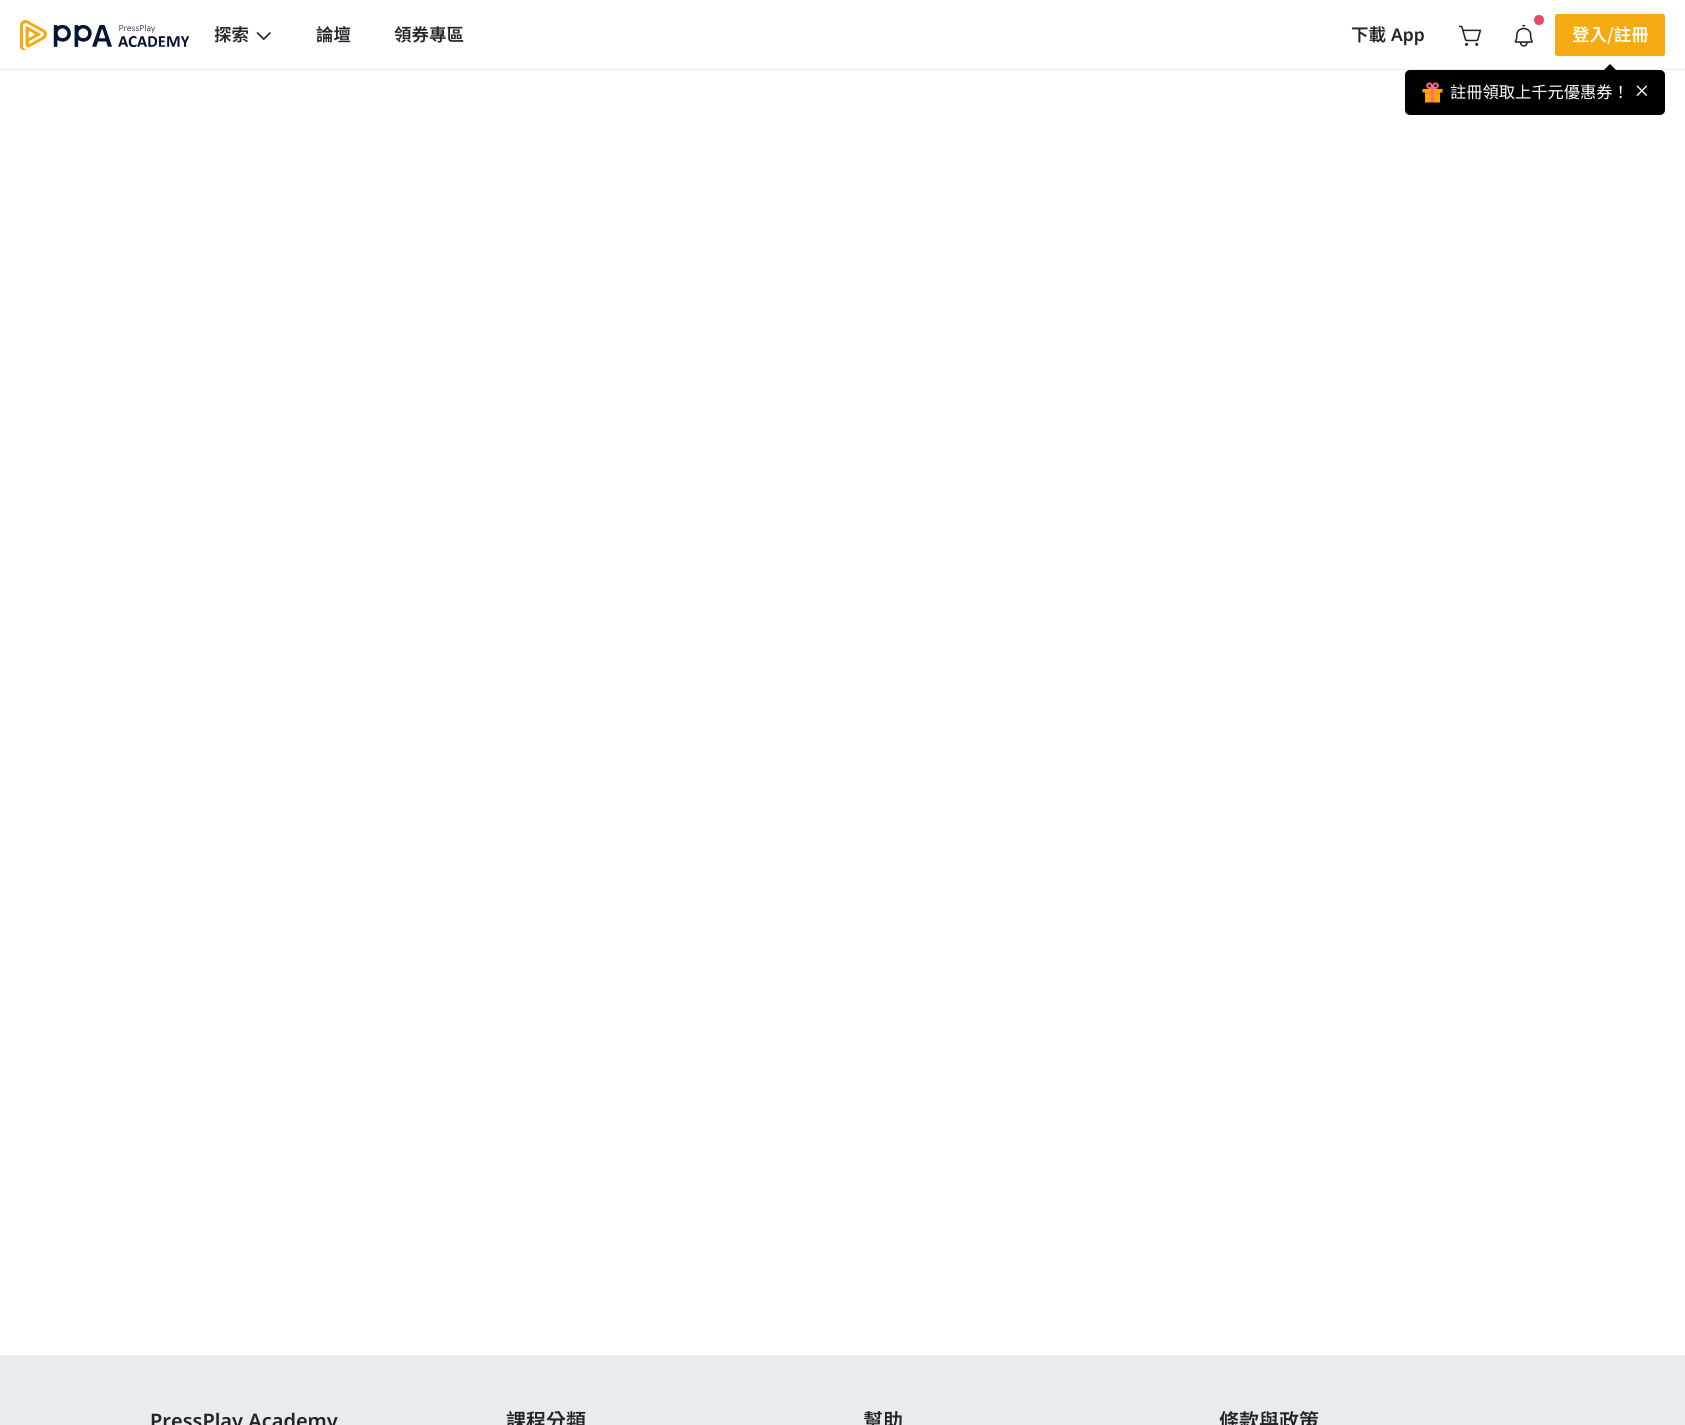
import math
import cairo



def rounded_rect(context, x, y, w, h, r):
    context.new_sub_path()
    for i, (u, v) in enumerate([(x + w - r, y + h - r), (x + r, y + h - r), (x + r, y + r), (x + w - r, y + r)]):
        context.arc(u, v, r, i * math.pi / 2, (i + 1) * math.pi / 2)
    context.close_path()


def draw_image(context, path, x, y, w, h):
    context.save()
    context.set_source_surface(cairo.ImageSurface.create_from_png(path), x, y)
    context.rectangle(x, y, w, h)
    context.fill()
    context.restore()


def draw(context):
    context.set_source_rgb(1, 1, 1)
    context.paint()
    context.set_source_rgb(233 / 255, 236 / 255, 239 / 255)
    context.rectangle(0, 69, 1685, 1)
    context.fill()
    draw_image(context, "images/1.png", 20, 20, 170, 30)
    draw_image(context, "images/2.png", 256, 32, 15, 8)
    draw_image(context, "images/3.png", 1458, 25, 24, 21)
    context.set_source_rgb(232 / 255, 73 / 255, 103 / 255)
    context.arc(1539, 20, 5, 0, 2 * math.pi)
    context.fill()
    draw_image(context, "images/4.png", 1514, 24, 19, 23)
    context.set_source_rgb(244 / 255, 170 / 255, 16 / 255)
    rounded_rect(context, 1555.5, 14.5, 109, 41, 2)
    context.fill_preserve()
    context.set_line_width(1)
    context.stroke()
    context.set_source_rgb(0, 0, 0)
    context.new_path()
    context.move_to(1616, 70)
    context.line_to(1604, 70)
    context.line_to(1610, 64)
    context.close_path()
    context.fill()
    rounded_rect(context, 1405, 70, 260, 45, 5)
    context.fill()
    draw_image(context, "images/5.png", 1422, 82, 21, 21)
    draw_image(context, "images/6.png", 1636, 85, 12, 11)
    context.set_source_rgb(233 / 255, 236 / 255, 239 / 255)
    context.rectangle(0, 1355, 1685, 70)
    context.fill()
    context.select_font_face("Noto Sans TC SemiBold")
    context.set_font_size(17.5)
    context.set_source_rgb(33 / 255, 37 / 255, 41 / 255)
    context.move_to(214, 41)
    context.show_text("探索")
    context.move_to(316, 41)
    context.show_text("論壇")
    context.move_to(394, 41)
    context.show_text("領券專區")
    context.move_to(1351, 41)
    context.show_text("下載")
    context.select_font_face("Noto Sans SemiBold")
    context.move_to(1391, 41)
    context.show_text("App")
    context.select_font_face("Noto Sans TC SemiBold")
    context.set_source_rgb(1, 1, 1)
    context.move_to(1572, 41)
    context.show_text("登入/註冊")
    context.select_font_face("Noto Sans TC")
    context.set_font_size(16.25)
    context.move_to(1450, 98)
    context.show_text("註冊領取上千元優惠券！")
    context.select_font_face("Noto Sans SemiBold")
    context.set_font_size(20)
    context.set_source_rgb(33 / 255, 37 / 255, 41 / 255)
    context.move_to(150, 1428)
    context.show_text("PressPlay Academy")
    context.select_font_face("Noto Sans TC SemiBold")
    context.move_to(506, 1428)
    context.show_text("課程分類")
    context.move_to(863, 1428)
    context.show_text("幫助")
    context.move_to(1219, 1428)
    context.show_text("條款與政策")


surface = cairo.ImageSurface(cairo.Format.RGB24, 1685, 1425)
context = cairo.Context(surface)
options = cairo.FontOptions()
options.set_hint_metrics(cairo.HintMetrics.OFF)
options.set_hint_style(cairo.HintStyle.NONE)
context.set_font_options(options)
context.set_miter_limit(4)
draw(context)
surface.write_to_png("out.png")
